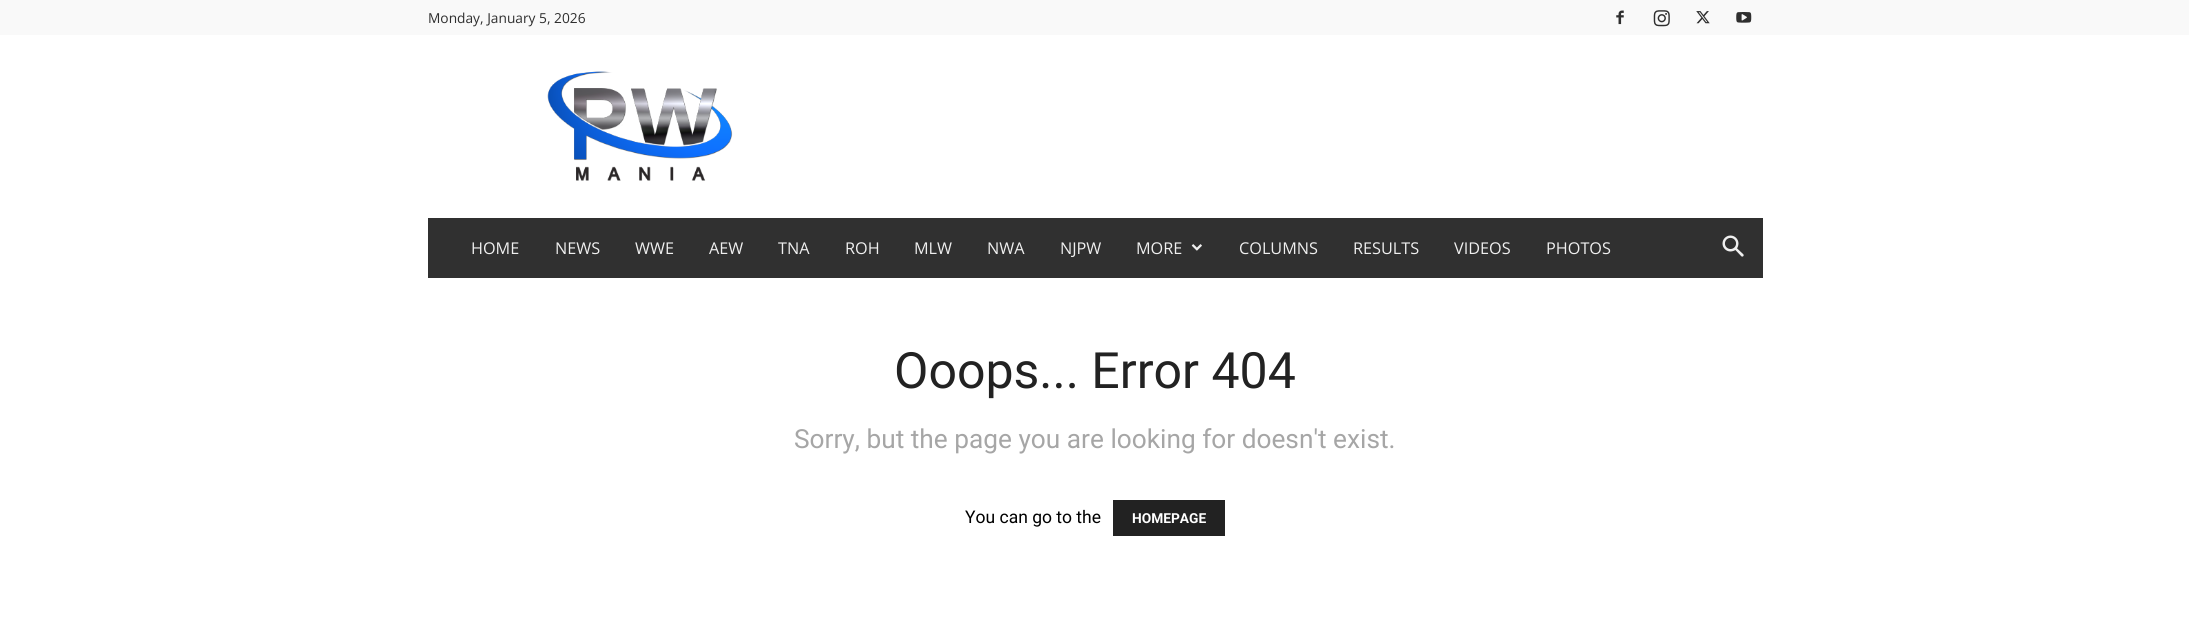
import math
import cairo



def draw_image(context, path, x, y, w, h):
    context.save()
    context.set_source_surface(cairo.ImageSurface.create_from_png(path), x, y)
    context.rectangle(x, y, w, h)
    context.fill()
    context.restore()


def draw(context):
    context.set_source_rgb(1, 1, 1)
    context.paint()
    context.set_source_rgb(249 / 255, 249 / 255, 249 / 255)
    context.rectangle(0, 0, 2189, 35)
    context.fill()
    draw_image(context, "images/1.png", 1616, 10, 8, 15)
    draw_image(context, "images/2.png", 1653, 10, 17, 17)
    draw_image(context, "images/3.png", 1696, 11, 14, 13)
    draw_image(context, "images/4.png", 1736, 12, 16, 11)
    draw_image(context, "images/5.png", 547, 71, 186, 110)
    context.set_source_rgb(48 / 255, 48 / 255, 48 / 255)
    context.rectangle(428, 218, 1335, 60)
    context.fill()
    draw_image(context, "images/6.png", 1191, 244, 11, 7)
    draw_image(context, "images/7.png", 1722, 235, 22, 22)
    context.set_source_rgb(34 / 255, 34 / 255, 34 / 255)
    context.rectangle(1113, 500, 112, 36)
    context.fill()
    context.select_font_face("Open Sans")
    context.set_font_size(13.75)
    context.set_source_rgb(47 / 255, 47 / 255, 47 / 255)
    context.move_to(428, 23)
    context.show_text("Monday, January 5, 2026")
    context.set_font_size(16.25)
    context.set_source_rgb(239 / 255, 239 / 255, 239 / 255)
    context.move_to(471, 254)
    context.show_text("HOME")
    context.move_to(555, 254)
    context.show_text("NEWS")
    context.move_to(635, 254)
    context.show_text("WWE")
    context.move_to(709, 254)
    context.show_text("AEW")
    context.move_to(778, 254)
    context.show_text("TNA")
    context.move_to(845, 254)
    context.show_text("ROH")
    context.move_to(914, 254)
    context.show_text("MLW")
    context.move_to(987, 254)
    context.show_text("NWA")
    context.move_to(1060, 254)
    context.show_text("NJPW")
    context.move_to(1136, 254)
    context.show_text("MORE")
    context.move_to(1239, 254)
    context.show_text("COLUMNS")
    context.move_to(1353, 254)
    context.show_text("RESULTS")
    context.move_to(1454, 254)
    context.show_text("VIDEOS")
    context.move_to(1546, 254)
    context.show_text("PHOTOS")
    context.select_font_face("Roboto")
    context.set_font_size(50)
    context.set_source_rgb(34 / 255, 34 / 255, 34 / 255)
    context.move_to(894, 388)
    context.show_text("Ooops... Error 404")
    context.set_font_size(26.25)
    context.set_source_rgb(166 / 255, 166 / 255, 166 / 255)
    context.move_to(794, 448)
    context.show_text("Sorry, but the page you are looking for doesn't exist.")
    context.set_font_size(17.5)
    context.set_source_rgb(0, 0, 0)
    context.move_to(965, 523)
    context.show_text("You can go to the")
    context.select_font_face("Roboto", cairo.FontSlant.NORMAL, cairo.FontWeight.BOLD)
    context.set_font_size(13.75)
    context.set_source_rgb(1, 1, 1)
    context.move_to(1132, 523)
    context.show_text("HOMEPAGE")


surface = cairo.ImageSurface(cairo.Format.RGB24, 2189, 628)
context = cairo.Context(surface)
options = cairo.FontOptions()
options.set_hint_metrics(cairo.HintMetrics.OFF)
options.set_hint_style(cairo.HintStyle.NONE)
context.set_font_options(options)
context.set_miter_limit(4)
draw(context)
surface.write_to_png("out.png")
